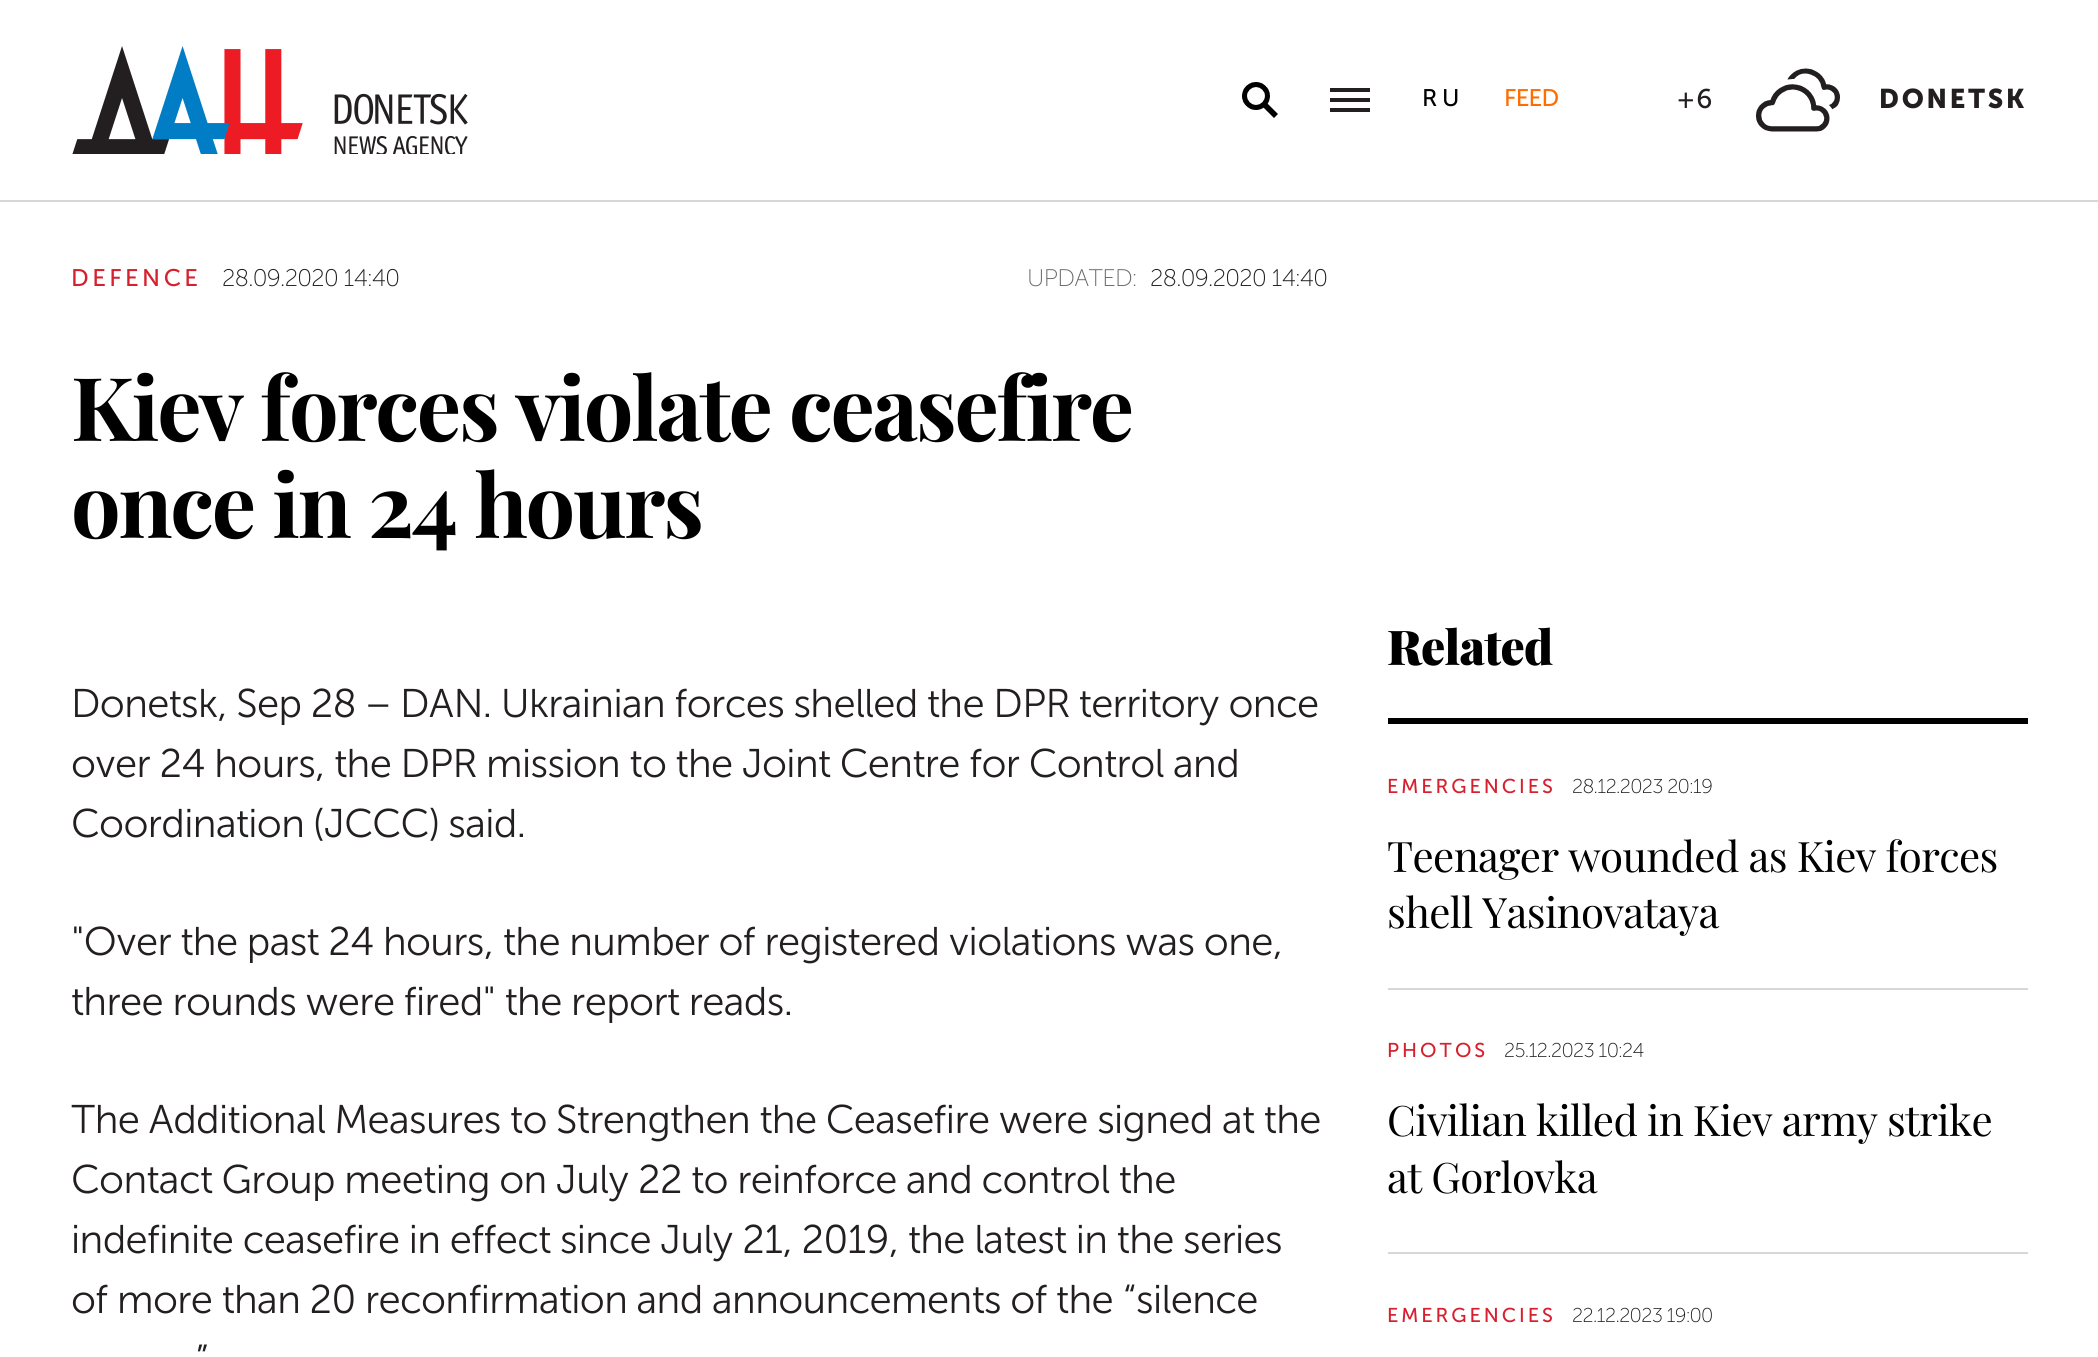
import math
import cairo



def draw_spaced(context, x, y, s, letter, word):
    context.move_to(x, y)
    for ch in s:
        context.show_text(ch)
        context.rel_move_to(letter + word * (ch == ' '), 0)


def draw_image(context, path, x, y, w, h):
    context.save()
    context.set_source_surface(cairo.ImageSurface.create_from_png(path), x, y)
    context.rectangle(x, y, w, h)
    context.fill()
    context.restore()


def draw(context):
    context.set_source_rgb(1, 1, 1)
    context.paint()
    context.set_source_rgb(215 / 255, 215 / 255, 215 / 255)
    context.rectangle(0, 200, 2098, 2)
    context.fill()
    draw_image(context, "images/1.png", 72, 46, 396, 108)
    draw_image(context, "images/2.png", 1242, 82, 36, 36)
    context.set_source_rgb(35 / 255, 31 / 255, 32 / 255)
    context.rectangle(1330, 88, 40, 4)
    context.fill()
    context.rectangle(1330, 98, 40, 4)
    context.fill()
    context.rectangle(1330, 108, 40, 4)
    context.fill()
    draw_image(context, "images/3.png", 1756, 68, 84, 64)
    context.set_source_rgb(0, 0, 0)
    context.rectangle(1388, 718, 640, 6)
    context.fill()
    context.set_source_rgb(215 / 255, 215 / 255, 215 / 255)
    context.rectangle(1388, 988, 640, 2)
    context.fill()
    context.rectangle(1388, 1252, 640, 2)
    context.fill()
    context.select_font_face("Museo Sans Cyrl")
    context.set_font_size(24)
    context.set_source_rgb(0, 0, 0)
    draw_spaced(context, 1422, 106, "RU", 5, 0)
    context.set_source_rgb(1, 108 / 255, 0)
    draw_spaced(context, 1504, 106, "FEED", -0.65, 0)
    context.set_font_size(27)
    context.set_source_rgb(35 / 255, 31 / 255, 32 / 255)
    draw_spaced(context, 1678, 108, "+6", 2.75, 0)
    context.select_font_face("Museo Sans Cyrl", cairo.FontSlant.NORMAL, cairo.FontWeight.BOLD)
    draw_spaced(context, 1879, 108, "DONETSK", 2.75, 0)
    context.select_font_face("Museo Sans Cyrl")
    context.set_font_size(24)
    context.set_source_rgb(215 / 255, 32 / 255, 46 / 255)
    draw_spaced(context, 71, 286, "DEFENCE", 3.5, 0)
    context.select_font_face("Museo Sans Cyrl ExtraLight")
    context.set_source_rgb(35 / 255, 31 / 255, 32 / 255)
    draw_spaced(context, 222, 286, "28.09.2020 14:40", -0.65, 0)
    context.set_source_rgb(105 / 255, 105 / 255, 105 / 255)
    draw_spaced(context, 1027, 286, "UPDATED:", -0.65, 0)
    context.set_source_rgb(35 / 255, 31 / 255, 32 / 255)
    draw_spaced(context, 1150, 286, "28.09.2020 14:40", -0.65, 0)
    context.select_font_face("Playfair Display", cairo.FontSlant.NORMAL, cairo.FontWeight.BOLD)
    context.set_font_size(88)
    context.set_source_rgb(0, 0, 0)
    draw_spaced(context, 71, 441, "Kiev forces violate ceasefire", -2.2, 0)
    draw_spaced(context, 71, 538, "once in 24 hours", -2.2, 0)
    context.select_font_face("Museo Sans Cyrl Light")
    context.set_font_size(40)
    context.set_source_rgb(35 / 255, 31 / 255, 32 / 255)
    draw_spaced(context, 71, 717, "Donetsk, Sep 28 – DAN. Ukrainian forces shelled the DPR territory once", -0.65, 0)
    draw_spaced(context, 71, 777, "over 24 hours, the DPR mission to the Joint Centre for Control and", -0.65, 0)
    draw_spaced(context, 71, 837, "Coordination (JCCC) said.", -0.65, 0)
    draw_spaced(context, 71, 955, "\"Over the past 24 hours, the number of registered violations was one,", -0.65, 0)
    draw_spaced(context, 71, 1015, "three rounds were fired\" the report reads.", -0.65, 0)
    draw_spaced(context, 71, 1133, "The Additional Measures to Strengthen the Ceasefire were signed at the", -0.65, 0)
    draw_spaced(context, 71, 1193, "Contact Group meeting on July 22 to reinforce and control the", -0.65, 0)
    draw_spaced(context, 71, 1253, "indefinite ceasefire in effect since July 21, 2019, the latest in the series", -0.65, 0)
    draw_spaced(context, 71, 1313, "of more than 20 reconfirmation and announcements of the “silence", -0.65, 0)
    draw_spaced(context, 195, 1373, "”", -0.65, 0)
    context.select_font_face("Playfair Display Black")
    context.set_font_size(48)
    context.set_source_rgb(0, 0, 0)
    draw_spaced(context, 1387, 665, "Related", -0.65, 0)
    context.select_font_face("Museo Sans Cyrl")
    context.set_font_size(20)
    context.set_source_rgb(215 / 255, 32 / 255, 46 / 255)
    draw_spaced(context, 1387, 793, "EMERGENCIES", 3, 0)
    context.select_font_face("Museo Sans Cyrl ExtraLight")
    context.set_source_rgb(35 / 255, 31 / 255, 32 / 255)
    draw_spaced(context, 1572, 793, "28.12.2023 20:19", -0.65, 0)
    context.select_font_face("Playfair Display")
    context.set_font_size(42)
    context.set_source_rgb(0, 0, 0)
    draw_spaced(context, 1387, 872, "Teenager wounded as Kiev forces", -0.65, 0)
    draw_spaced(context, 1387, 928, "shell Yasinovataya", -0.65, 0)
    context.select_font_face("Museo Sans Cyrl")
    context.set_font_size(20)
    context.set_source_rgb(215 / 255, 32 / 255, 46 / 255)
    draw_spaced(context, 1387, 1057, "PHOTOS", 3, 0)
    context.select_font_face("Museo Sans Cyrl ExtraLight")
    context.set_source_rgb(35 / 255, 31 / 255, 32 / 255)
    draw_spaced(context, 1504, 1057, "25.12.2023 10:24", -0.65, 0)
    context.select_font_face("Playfair Display")
    context.set_font_size(42)
    context.set_source_rgb(0, 0, 0)
    draw_spaced(context, 1387, 1136, "Civilian killed in Kiev army strike", -0.65, 0)
    draw_spaced(context, 1387, 1193, "at Gorlovka", -0.65, 0)
    context.select_font_face("Museo Sans Cyrl")
    context.set_font_size(20)
    context.set_source_rgb(215 / 255, 32 / 255, 46 / 255)
    draw_spaced(context, 1387, 1322, "EMERGENCIES", 3, 0)
    context.select_font_face("Museo Sans Cyrl ExtraLight")
    context.set_source_rgb(35 / 255, 31 / 255, 32 / 255)
    draw_spaced(context, 1572, 1322, "22.12.2023 19:00", -0.65, 0)


surface = cairo.ImageSurface(cairo.Format.RGB24, 2098, 1357)
context = cairo.Context(surface)
options = cairo.FontOptions()
options.set_hint_metrics(cairo.HintMetrics.OFF)
options.set_hint_style(cairo.HintStyle.NONE)
context.set_font_options(options)
context.set_miter_limit(4)
draw(context)
surface.write_to_png("out.png")
